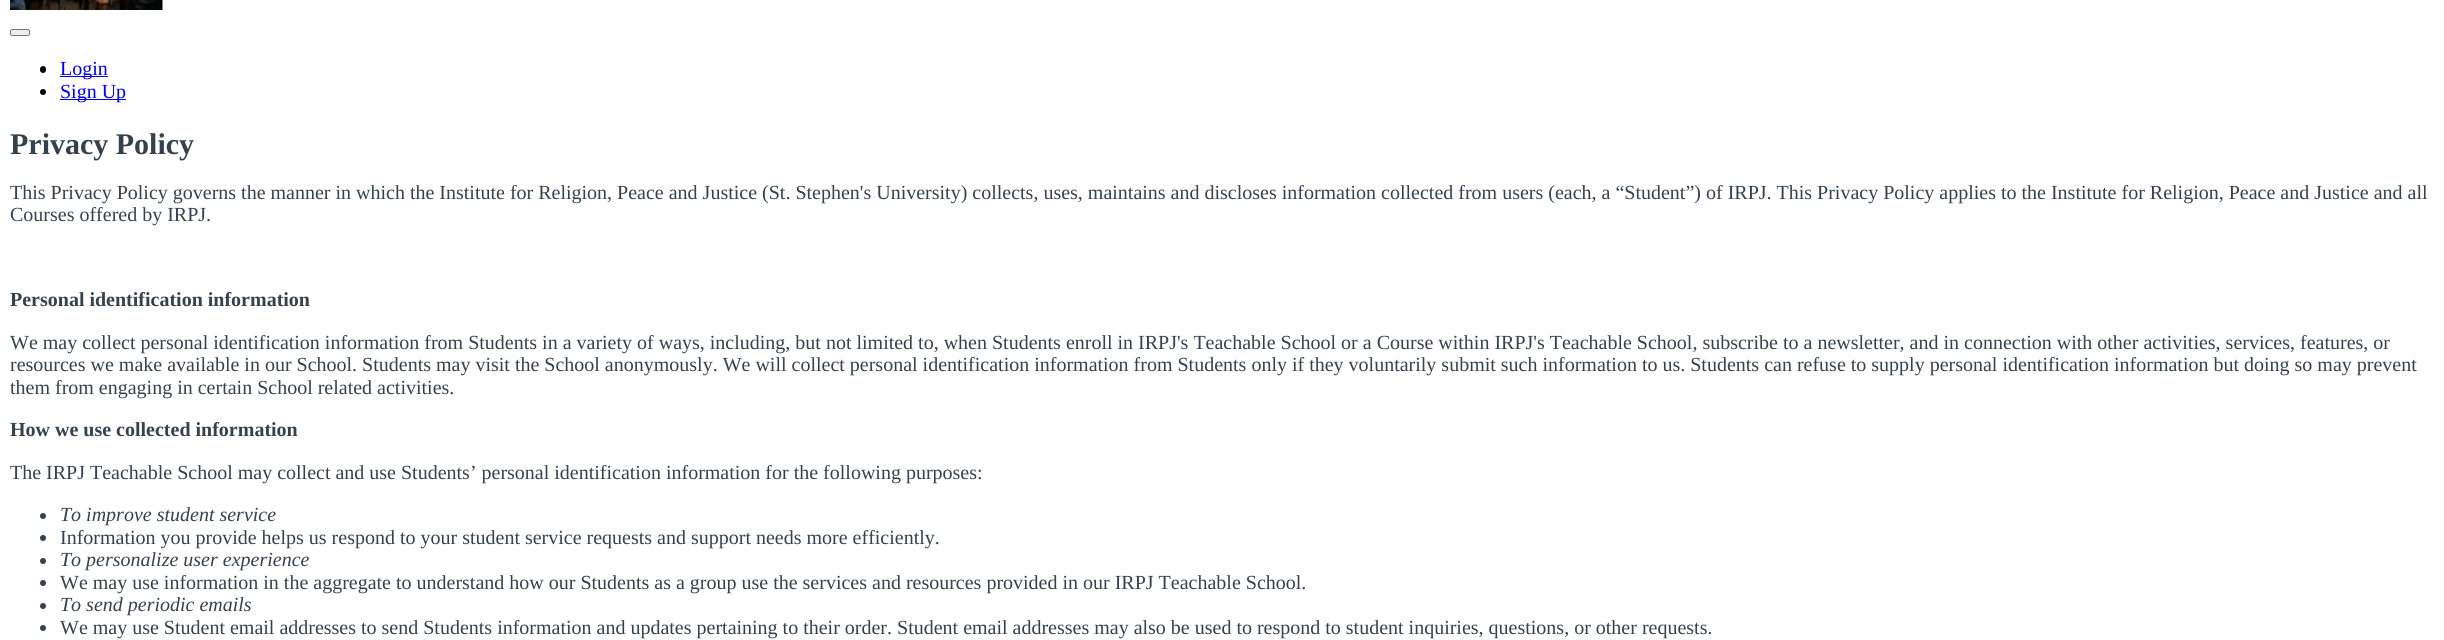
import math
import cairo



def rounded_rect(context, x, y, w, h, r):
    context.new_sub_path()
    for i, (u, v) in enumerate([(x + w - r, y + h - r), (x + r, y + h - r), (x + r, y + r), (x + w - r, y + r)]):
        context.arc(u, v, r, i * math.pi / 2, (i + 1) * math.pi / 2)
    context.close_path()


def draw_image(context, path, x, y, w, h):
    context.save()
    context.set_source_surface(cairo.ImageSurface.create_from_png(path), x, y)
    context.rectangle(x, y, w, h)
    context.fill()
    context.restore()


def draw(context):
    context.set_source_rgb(1, 1, 1)
    context.paint()
    draw_image(context, "images/1.png", 10, 0, 153, 10)
    context.set_source_rgb(239 / 255, 239 / 255, 239 / 255)
    rounded_rect(context, 10.5, 29.5, 19, 6, 2)
    context.fill_preserve()
    context.set_source_rgb(118 / 255, 118 / 255, 118 / 255)
    context.set_line_width(1)
    context.stroke()
    context.set_source_rgb(0, 0, 0)
    rounded_rect(context, 40, 66, 6, 7, 3)
    context.fill()
    context.set_source_rgb(0, 0, 238 / 255)
    context.rectangle(60, 76, 48, 1)
    context.fill()
    context.set_source_rgb(0, 0, 0)
    context.arc(43, 92, 3, 0, 2 * math.pi)
    context.fill()
    context.set_source_rgb(0, 0, 238 / 255)
    context.rectangle(60, 99, 66, 1)
    context.fill()
    context.set_source_rgb(54 / 255, 65 / 255, 77 / 255)
    context.arc(43, 516, 3, 0, 2 * math.pi)
    context.fill()
    context.arc(43, 538, 3, 0, 2 * math.pi)
    context.fill()
    context.arc(43, 561, 3, 0, 2 * math.pi)
    context.fill()
    context.arc(43, 583, 3, 0, 2 * math.pi)
    context.fill()
    context.arc(43, 606, 3, 0, 2 * math.pi)
    context.fill()
    context.arc(43, 628, 3, 0, 2 * math.pi)
    context.fill()
    context.select_font_face("Liberation Serif")
    context.set_font_size(20)
    context.set_source_rgb(0, 0, 238 / 255)
    context.move_to(60, 75)
    context.show_text("Login")
    context.move_to(60, 98)
    context.show_text("Sign Up")
    context.select_font_face("Liberation Serif", cairo.FontSlant.NORMAL, cairo.FontWeight.BOLD)
    context.set_font_size(30)
    context.set_source_rgb(54 / 255, 65 / 255, 77 / 255)
    context.move_to(10, 154)
    context.show_text("Privacy Policy")
    context.select_font_face("Liberation Serif")
    context.set_font_size(20)
    context.move_to(10, 199)
    context.show_text("This Privacy Policy governs the manner in which the Institute for Religion, Peace and Justice (St. Stephen's University) collects, uses, maintains and discloses information collected from users (each, a “Student”) of IRPJ. This Privacy Policy applies to the Institute for Religion, Peace and Justice and all")
    context.move_to(10, 221)
    context.show_text("Courses offered by IRPJ.")
    context.select_font_face("Liberation Serif", cairo.FontSlant.NORMAL, cairo.FontWeight.BOLD)
    context.move_to(10, 306)
    context.show_text("Personal identification information")
    context.select_font_face("Liberation Serif")
    context.move_to(10, 349)
    context.show_text("We may collect personal identification information from Students in a variety of ways, including, but not limited to, when Students enroll in IRPJ's Teachable School or a Course within IRPJ's Teachable School, subscribe to a newsletter, and in connection with other activities, services, features, or")
    context.move_to(10, 371)
    context.show_text("resources we make available in our School. Students may visit the School anonymously. We will collect personal identification information from Students only if they voluntarily submit such information to us. Students can refuse to supply personal identification information but doing so may prevent")
    context.move_to(10, 394)
    context.show_text("them from engaging in certain School related activities.")
    context.select_font_face("Liberation Serif", cairo.FontSlant.NORMAL, cairo.FontWeight.BOLD)
    context.move_to(10, 436)
    context.show_text("How we use collected information")
    context.select_font_face("Liberation Serif")
    context.move_to(10, 479)
    context.show_text("The IRPJ Teachable School may collect and use Students’ personal identification information for the following purposes:")
    context.select_font_face("Liberation Serif", cairo.FontSlant.ITALIC)
    context.move_to(60, 521)
    context.show_text("To improve student service")
    context.select_font_face("Liberation Serif")
    context.move_to(60, 544)
    context.show_text("Information you provide helps us respond to your student service requests and support needs more efficiently.")
    context.select_font_face("Liberation Serif", cairo.FontSlant.ITALIC)
    context.move_to(60, 566)
    context.show_text("To personalize user experience")
    context.select_font_face("Liberation Serif")
    context.move_to(60, 589)
    context.show_text("We may use information in the aggregate to understand how our Students as a group use the services and resources provided in our IRPJ Teachable School.")
    context.select_font_face("Liberation Serif", cairo.FontSlant.ITALIC)
    context.move_to(60, 611)
    context.show_text("To send periodic emails")
    context.select_font_face("Liberation Serif")
    context.move_to(60, 634)
    context.show_text("We may use Student email addresses to send Students information and updates pertaining to their order. Student email addresses may also be used to respond to student inquiries, questions, or other requests.")


surface = cairo.ImageSurface(cairo.Format.RGB24, 2444, 640)
context = cairo.Context(surface)
options = cairo.FontOptions()
options.set_hint_metrics(cairo.HintMetrics.OFF)
options.set_hint_style(cairo.HintStyle.NONE)
context.set_font_options(options)
context.set_miter_limit(4)
draw(context)
surface.write_to_png("out.png")
